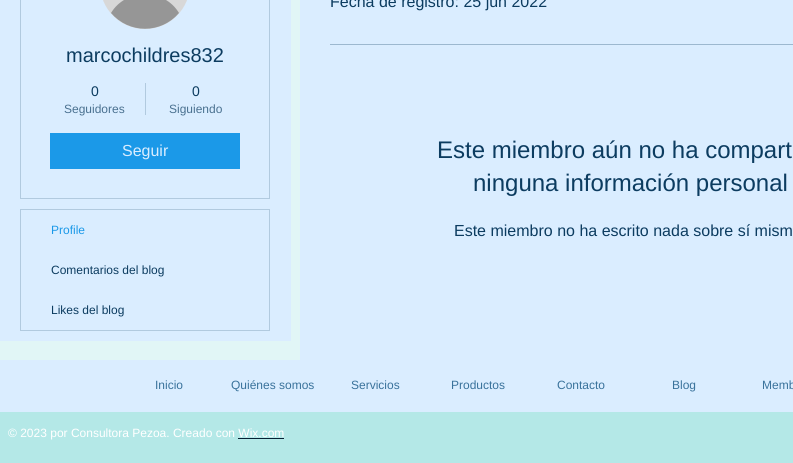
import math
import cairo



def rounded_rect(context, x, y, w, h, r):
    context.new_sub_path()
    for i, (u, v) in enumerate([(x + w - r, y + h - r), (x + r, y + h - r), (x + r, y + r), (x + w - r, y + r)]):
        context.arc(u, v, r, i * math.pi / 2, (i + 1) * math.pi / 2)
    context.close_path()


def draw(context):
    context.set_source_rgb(180 / 255, 232 / 255, 231 / 255)
    context.paint()
    context.set_source_rgb(225 / 255, 246 / 255, 246 / 255)
    context.rectangle(0, 0, 300, 360)
    context.fill()
    context.set_source_rgb(218 / 255, 237 / 255, 1)
    context.rectangle(0, 0, 291, 341)
    context.fill()
    context.rectangle(20.5, -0.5, 249, 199)
    context.set_source_rgb(177 / 255, 202 / 255, 223 / 255)
    context.set_line_width(1)
    context.stroke()
    context.set_source_rgb(216 / 255, 216 / 255, 216 / 255)
    rounded_rect(context, 100, -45, 90, 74, 45)
    context.fill()
    context.set_source_rgb(150 / 255, 150 / 255, 150 / 255)
    context.new_path()
    context.move_to(179, 13)
    context.curve_to(161, 34, 129, 34, 111, 13)
    context.curve_to(126, -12, 164, -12, 179, 13)
    context.close_path()
    context.fill()
    context.set_source_rgb(177 / 255, 202 / 255, 223 / 255)
    context.rectangle(145, 83, 1, 32)
    context.fill()
    context.set_source_rgb(27 / 255, 153 / 255, 232 / 255)
    context.rectangle(50, 133, 190, 36)
    context.fill()
    context.rectangle(20.5, 209.5, 249, 121)
    context.set_source_rgb(177 / 255, 202 / 255, 223 / 255)
    context.stroke()
    context.set_source_rgb(218 / 255, 237 / 255, 1)
    context.rectangle(300, 0, 493, 360)
    context.fill()
    context.set_source_rgb(156 / 255, 184 / 255, 207 / 255)
    context.rectangle(330, 44, 463, 1)
    context.fill()
    context.set_source_rgb(218 / 255, 237 / 255, 1)
    context.rectangle(0, 360, 793, 52)
    context.fill()
    context.select_font_face("Liberation Sans")
    context.set_font_size(20)
    context.set_source_rgb(12 / 255, 60 / 255, 96 / 255)
    context.move_to(66, 62)
    context.show_text("marcochildres832")
    context.set_font_size(14)
    context.move_to(91, 96)
    context.show_text("0")
    context.set_font_size(12)
    context.set_source_rgb(74 / 255, 113 / 255, 144 / 255)
    context.move_to(64, 113)
    context.show_text("Seguidores")
    context.set_font_size(14)
    context.set_source_rgb(12 / 255, 60 / 255, 96 / 255)
    context.move_to(192, 96)
    context.show_text("0")
    context.set_font_size(12)
    context.set_source_rgb(74 / 255, 113 / 255, 144 / 255)
    context.move_to(169, 113)
    context.show_text("Siguiendo")
    context.set_font_size(16)
    context.set_source_rgb(218 / 255, 237 / 255, 1)
    context.move_to(122, 156)
    context.show_text("Seguir")
    context.set_font_size(12)
    context.set_source_rgb(27 / 255, 153 / 255, 232 / 255)
    context.move_to(51, 234)
    context.show_text("Profile")
    context.set_source_rgb(12 / 255, 60 / 255, 96 / 255)
    context.move_to(51, 274)
    context.show_text("Comentarios del blog")
    context.move_to(51, 314)
    context.show_text("Likes del blog")
    context.set_font_size(16)
    context.move_to(330, 7)
    context.show_text("Fecha de registro: 25 jun 2022")
    context.set_font_size(24)
    context.move_to(437, 158)
    context.show_text("Este miembro aún no ha compart")
    context.move_to(473, 191)
    context.show_text("ninguna información personal")
    context.set_font_size(16)
    context.move_to(454, 236)
    context.show_text("Este miembro no ha escrito nada sobre sí mism")
    context.set_font_size(12)
    context.set_source_rgb(57 / 255, 114 / 255, 155 / 255)
    context.move_to(155, 389)
    context.show_text("Inicio")
    context.move_to(231, 389)
    context.show_text("Quiénes somos")
    context.move_to(351, 389)
    context.show_text("Servicios")
    context.move_to(451, 389)
    context.show_text("Productos")
    context.move_to(557, 389)
    context.show_text("Contacto")
    context.move_to(672, 389)
    context.show_text("Blog")
    context.move_to(762, 389)
    context.show_text("Memb")
    context.set_source_rgb(1, 1, 1)
    context.move_to(8, 437)
    context.show_text("© 2023 por Consultora Pezoa. Creado con Wix.com")
    context.set_source_rgb(6 / 255, 33 / 255, 52 / 255)
    context.rectangle(238, 438, 46, 1)
    context.fill()


surface = cairo.ImageSurface(cairo.Format.RGB24, 793, 463)
context = cairo.Context(surface)
options = cairo.FontOptions()
options.set_hint_metrics(cairo.HintMetrics.OFF)
options.set_hint_style(cairo.HintStyle.NONE)
context.set_font_options(options)
context.set_miter_limit(4)
draw(context)
surface.write_to_png("out.png")
